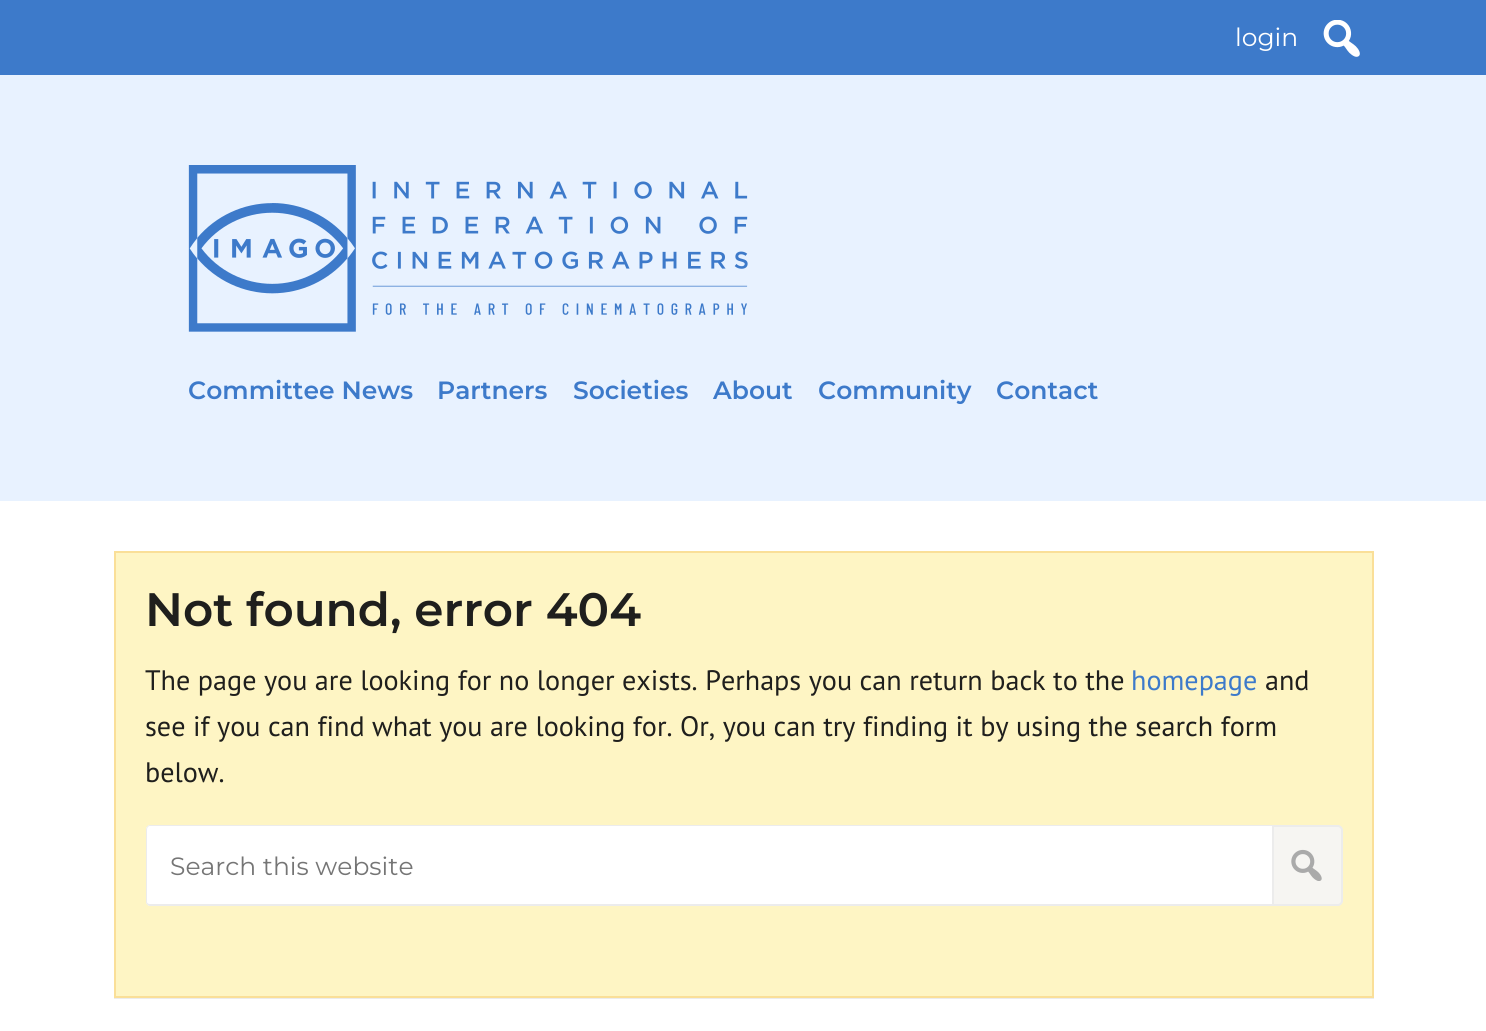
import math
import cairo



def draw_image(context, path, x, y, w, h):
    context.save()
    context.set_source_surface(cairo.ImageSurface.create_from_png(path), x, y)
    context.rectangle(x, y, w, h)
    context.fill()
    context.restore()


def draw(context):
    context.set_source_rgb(1, 1, 1)
    context.paint()
    context.set_source_rgb(232 / 255, 242 / 255, 1)
    context.rectangle(0, 75, 1486, 426)
    context.fill()
    context.set_source_rgb(61 / 255, 122 / 255, 202 / 255)
    context.rectangle(0, 0, 1486, 75)
    context.fill()
    draw_image(context, "images/1.png", 1323, 20, 37, 37)
    draw_image(context, "images/2.png", 188, 165, 560, 167)
    context.set_source_rgb(236 / 255, 236 / 255, 236 / 255)
    context.rectangle(114, 998, 1260, 1)
    context.fill()
    context.set_source_rgb(254 / 255, 245 / 255, 196 / 255)
    context.rectangle(115, 552, 1258, 445)
    context.fill_preserve()
    context.set_source_rgb(250 / 255, 223 / 255, 152 / 255)
    context.stroke()
    context.set_source_rgb(1, 1, 1)
    context.new_path()
    context.move_to(151, 825)
    context.line_to(1272, 825)
    context.line_to(1272, 906)
    context.line_to(151, 906)
    context.curve_to(148, 906, 146, 904, 146, 901)
    context.line_to(146, 830)
    context.curve_to(146, 827, 148, 825, 151, 825)
    context.close_path()
    context.fill()
    context.set_source_rgb(236 / 255, 236 / 255, 236 / 255)
    context.set_fill_rule(cairo.FillRule.EVEN_ODD)
    context.new_path()
    context.move_to(150, 825)
    context.line_to(1272, 825)
    context.line_to(1272, 906)
    context.line_to(150, 906)
    context.curve_to(148, 906, 146, 904, 146, 902)
    context.line_to(146, 830)
    context.curve_to(146, 827, 148, 825, 150, 825)
    context.close_path()
    context.move_to(150, 826)
    context.line_to(1272, 826)
    context.line_to(1272, 904)
    context.line_to(150, 904)
    context.curve_to(148, 904, 147, 903, 147, 902)
    context.line_to(147, 830)
    context.curve_to(147, 828, 148, 826, 150, 826)
    context.close_path()
    context.fill()
    context.set_source_rgb(246 / 255, 245 / 255, 242 / 255)
    context.new_path()
    context.move_to(1273, 826)
    context.line_to(1338, 826)
    context.curve_to(1340, 826, 1342, 828, 1342, 830)
    context.line_to(1342, 901)
    context.curve_to(1342, 903, 1340, 905, 1338, 905)
    context.line_to(1273, 905)
    context.close_path()
    context.fill_preserve()
    context.set_source_rgb(236 / 255, 236 / 255, 236 / 255)
    context.stroke()
    draw_image(context, "images/3.png", 1291, 849, 31, 32)
    context.select_font_face("Montserrat Thin")
    context.set_font_size(25)
    context.set_source_rgb(1, 1, 1)
    context.move_to(1235, 46)
    context.show_text("login")
    context.select_font_face("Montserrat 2 Thin")
    context.set_source_rgb(61 / 255, 122 / 255, 202 / 255)
    context.move_to(188, 399)
    context.show_text("Committee News")
    context.move_to(437, 399)
    context.show_text("Partners")
    context.move_to(573, 399)
    context.show_text("Societies")
    context.move_to(713, 399)
    context.show_text("About")
    context.move_to(818, 399)
    context.show_text("Community")
    context.move_to(996, 399)
    context.show_text("Contact")
    context.set_font_size(46.9)
    context.set_source_rgb(31 / 255, 31 / 255, 29 / 255)
    context.move_to(145, 626)
    context.show_text("Not found, error 404")
    context.select_font_face("PT Sans")
    context.set_font_size(28.15)
    context.move_to(145, 690)
    context.show_text("The page you are looking for no longer exists. Perhaps you can return back to the")
    context.set_source_rgb(61 / 255, 122 / 255, 202 / 255)
    context.move_to(1131, 690)
    context.show_text("homepage")
    context.set_source_rgb(31 / 255, 31 / 255, 29 / 255)
    context.move_to(1265, 690)
    context.show_text("and")
    context.move_to(145, 736)
    context.show_text("see if you can find what you are looking for. Or, you can try finding it by using the search form")
    context.move_to(145, 782)
    context.show_text("below.")
    context.select_font_face("Montserrat Thin")
    context.set_font_size(25)
    context.set_source_rgb(117 / 255, 117 / 255, 117 / 255)
    context.move_to(170, 875)
    context.show_text("Search this website")


surface = cairo.ImageSurface(cairo.Format.RGB24, 1486, 1031)
context = cairo.Context(surface)
options = cairo.FontOptions()
options.set_hint_metrics(cairo.HintMetrics.OFF)
options.set_hint_style(cairo.HintStyle.NONE)
context.set_font_options(options)
context.set_miter_limit(4)
draw(context)
surface.write_to_png("out.png")
